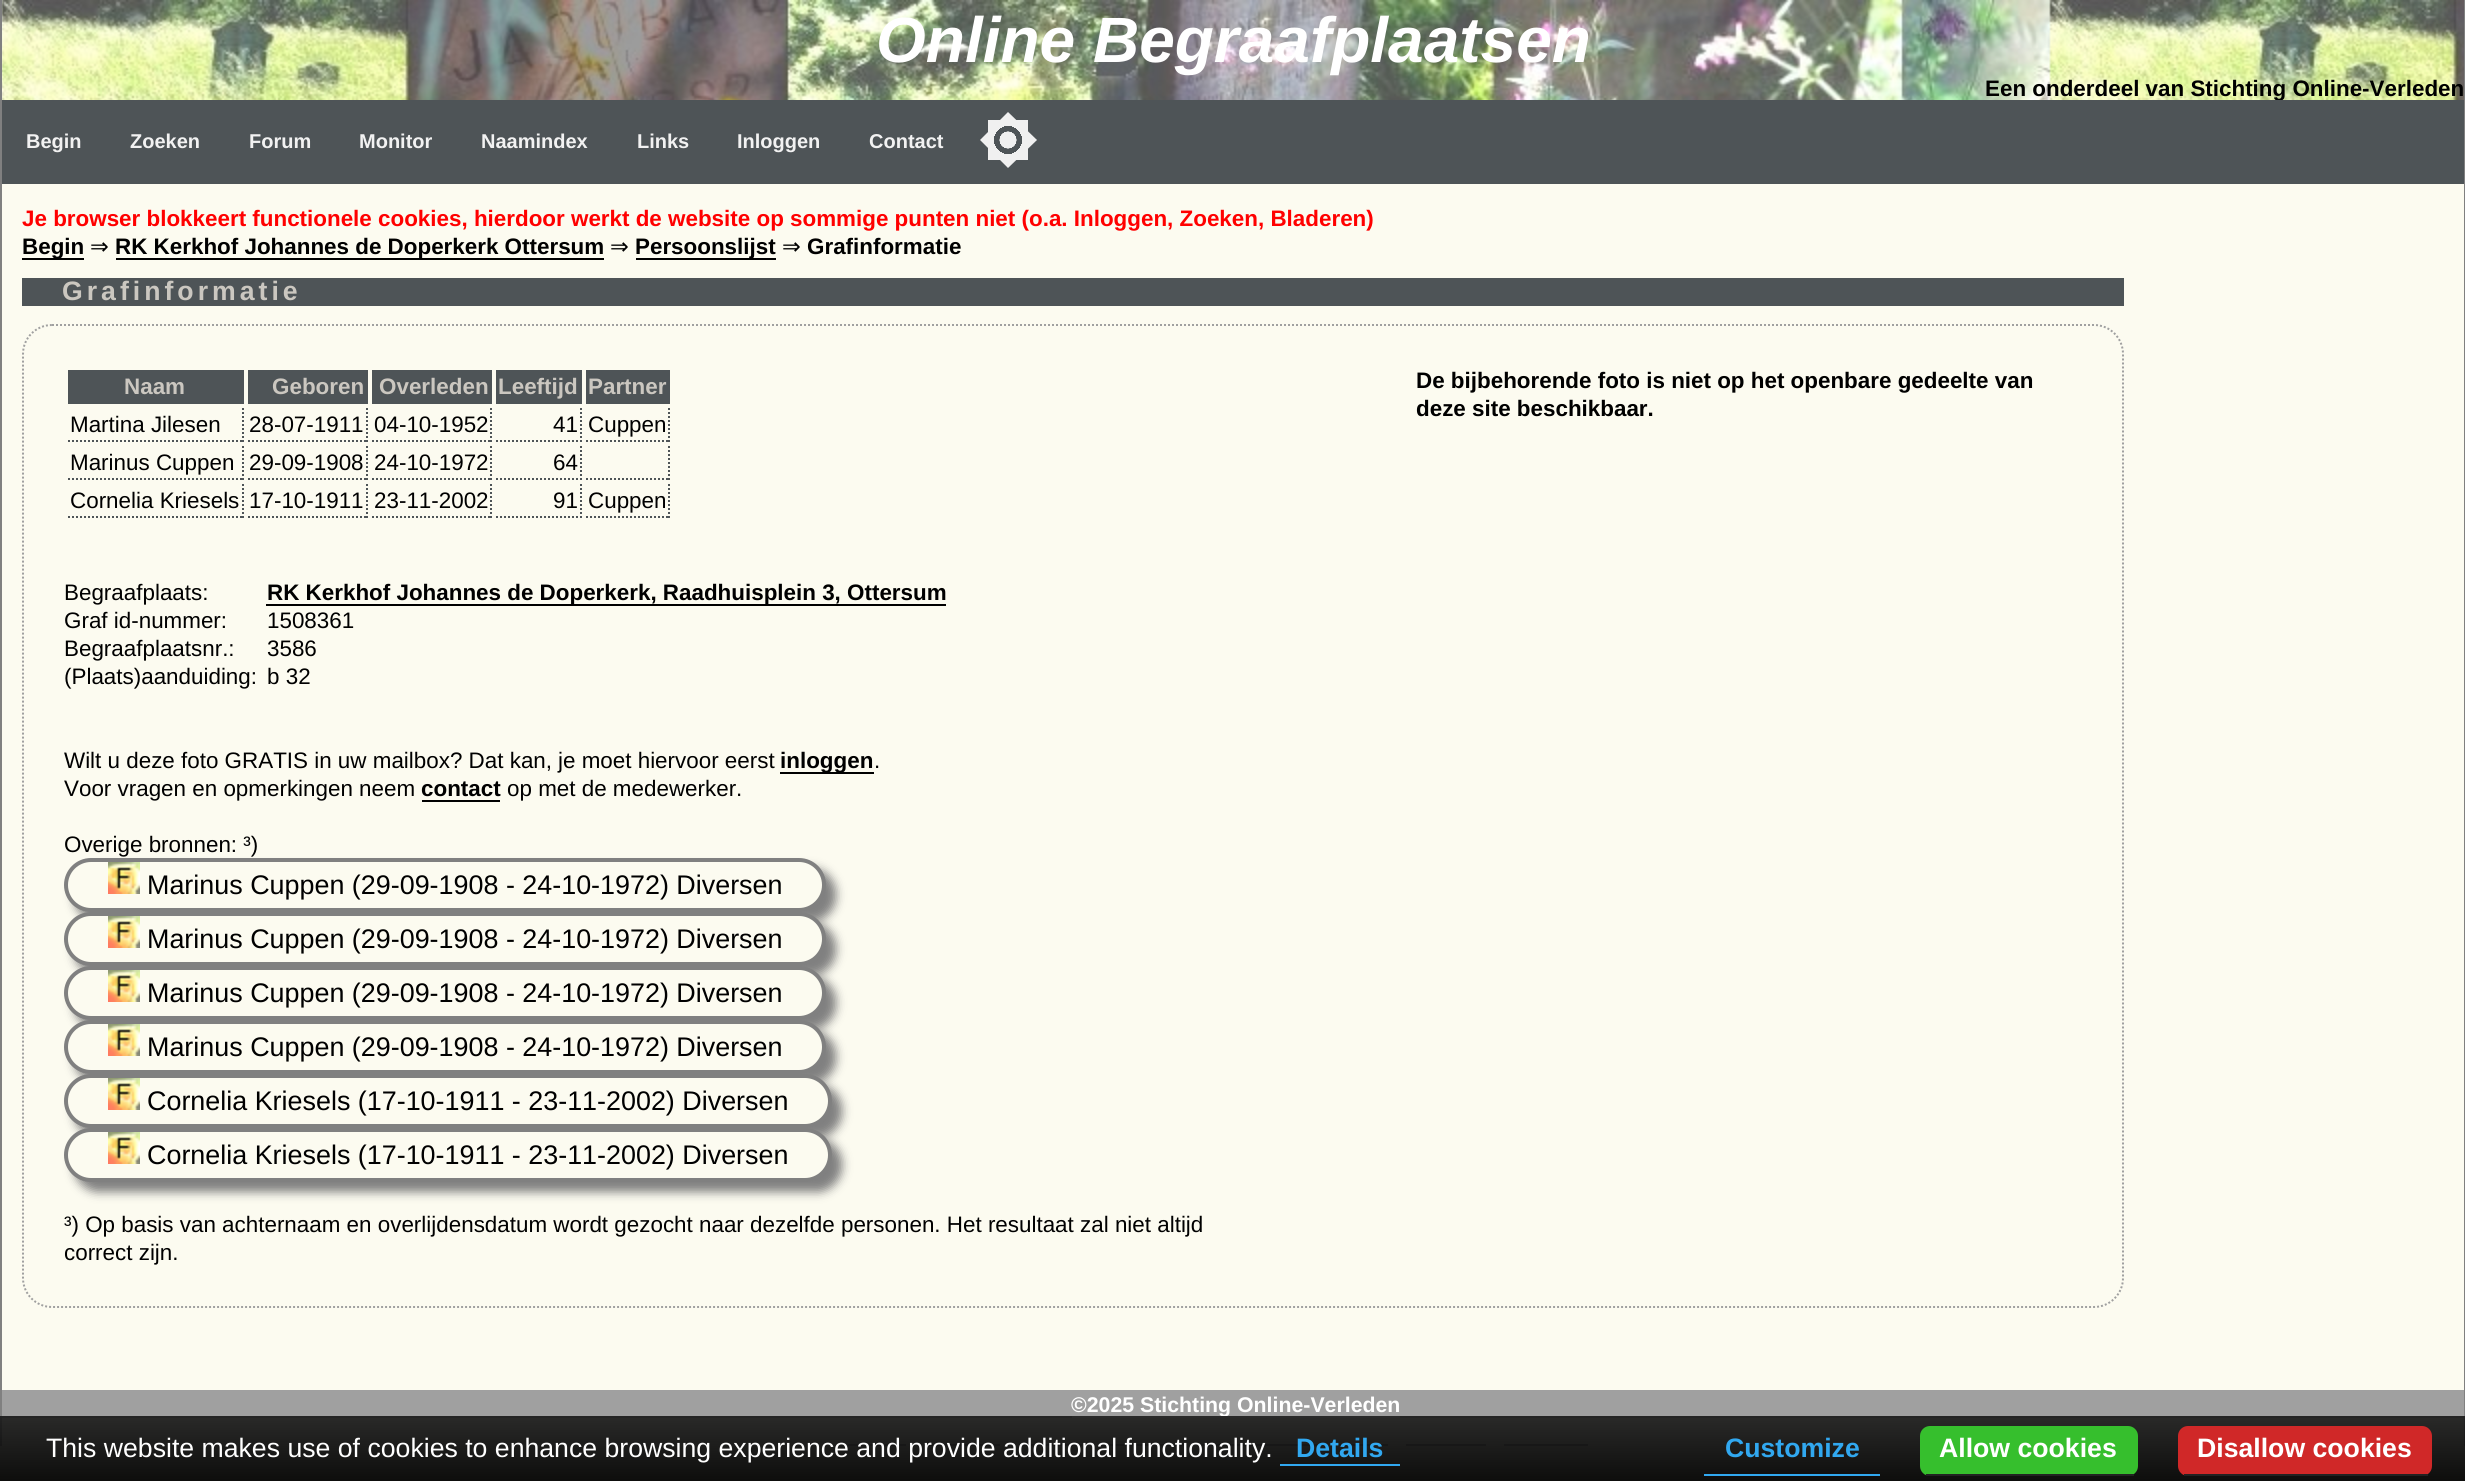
import math
import cairo



def draw_spaced(context, x, y, s, letter, word):
    context.move_to(x, y)
    for ch in s:
        context.show_text(ch)
        context.rel_move_to(letter + word * (ch == ' '), 0)


def rounded_rect(context, x, y, w, h, r):
    context.new_sub_path()
    for i, (u, v) in enumerate([(x + w - r, y + h - r), (x + r, y + h - r), (x + r, y + r), (x + w - r, y + r)]):
        context.arc(u, v, r, i * math.pi / 2, (i + 1) * math.pi / 2)
    context.close_path()


def draw_shadow(context, x, y, w, h, r, blur, alpha):
    context.push_group_with_content(cairo.Content.ALPHA)
    context.set_operator(cairo.Operator.SOURCE)
    for i in range(15, -16, -2):
        e = blur * i / 6
        if min(w, h) + 2 * e > 0:
            context.set_source_rgba(0, 0, 0, alpha * math.erfc((i - 1) / 8.5) / 2)
            rounded_rect(context, x - e, y - e, w + 2 * e, h + 2 * e, max(0, min(r + e + blur * .6, min(w, h) / 2 + e)))
            context.fill()
    context.mask(context.pop_group())


def draw_image(context, path, x, y, w, h):
    context.save()
    context.set_source_surface(cairo.ImageSurface.create_from_png(path), x, y)
    context.rectangle(x, y, w, h)
    context.fill()
    context.restore()


def draw(context):
    context.set_source_rgb(252 / 255, 251 / 255, 240 / 255)
    context.paint()
    context.set_source_rgb(128 / 255, 128 / 255, 128 / 255)
    context.rectangle(2464, 0, 1, 1446)
    context.fill()
    context.rectangle(0, 0, 2, 1446)
    context.fill()
    draw_image(context, "images/1.png", 2, 0, 2462, 100)
    context.set_source_rgb(0, 0, 0)
    context.rectangle(22, 258, 62, 2)
    context.fill()
    context.rectangle(116, 258, 488, 2)
    context.fill()
    context.rectangle(636, 258, 140, 2)
    context.fill()
    context.set_source_rgb(78 / 255, 84 / 255, 87 / 255)
    context.rectangle(22, 278, 2102, 28)
    context.fill()
    context.new_path()
    context.move_to(52, 325)
    context.line_to(2094, 325)
    context.curve_to(2110, 325, 2123, 338, 2123, 354)
    context.line_to(2123, 1278)
    context.curve_to(2123, 1294, 2110, 1307, 2094, 1307)
    context.line_to(52, 1307)
    context.curve_to(36, 1307, 23, 1294, 23, 1278)
    context.line_to(23, 354)
    context.curve_to(23, 338, 36, 325, 52, 325)
    context.close_path()
    context.set_source_rgb(160 / 255, 160 / 255, 160 / 255)
    context.set_dash([2, 2])
    context.stroke()
    context.set_source_rgb(78 / 255, 84 / 255, 87 / 255)
    context.rectangle(68, 370, 176, 34)
    context.fill()
    context.rectangle(248, 370, 120, 34)
    context.fill()
    context.rectangle(372, 370, 120, 34)
    context.fill()
    context.rectangle(496, 370, 86, 34)
    context.fill()
    context.rectangle(586, 370, 84, 34)
    context.fill()
    context.new_path()
    context.move_to(243, 408)
    context.line_to(243, 442)
    context.stroke()
    context.new_path()
    context.move_to(68, 441)
    context.line_to(244, 441)
    context.stroke()
    context.new_path()
    context.move_to(367, 408)
    context.line_to(367, 442)
    context.stroke()
    context.new_path()
    context.move_to(248, 441)
    context.line_to(368, 441)
    context.stroke()
    context.new_path()
    context.move_to(491, 408)
    context.line_to(491, 442)
    context.stroke()
    context.new_path()
    context.move_to(372, 441)
    context.line_to(492, 441)
    context.stroke()
    context.new_path()
    context.move_to(581, 408)
    context.line_to(581, 442)
    context.stroke()
    context.new_path()
    context.move_to(496, 441)
    context.line_to(582, 441)
    context.stroke()
    context.new_path()
    context.move_to(669, 408)
    context.line_to(669, 442)
    context.stroke()
    context.new_path()
    context.move_to(586, 441)
    context.line_to(670, 441)
    context.stroke()
    context.new_path()
    context.move_to(243, 446)
    context.line_to(243, 480)
    context.stroke()
    context.new_path()
    context.move_to(68, 479)
    context.line_to(244, 479)
    context.stroke()
    context.new_path()
    context.move_to(367, 446)
    context.line_to(367, 480)
    context.stroke()
    context.new_path()
    context.move_to(248, 479)
    context.line_to(368, 479)
    context.stroke()
    context.new_path()
    context.move_to(491, 446)
    context.line_to(491, 480)
    context.stroke()
    context.new_path()
    context.move_to(372, 479)
    context.line_to(492, 479)
    context.stroke()
    context.new_path()
    context.move_to(581, 446)
    context.line_to(581, 480)
    context.stroke()
    context.new_path()
    context.move_to(496, 479)
    context.line_to(582, 479)
    context.stroke()
    context.new_path()
    context.move_to(669, 446)
    context.line_to(669, 480)
    context.stroke()
    context.new_path()
    context.move_to(586, 479)
    context.line_to(670, 479)
    context.stroke()
    context.new_path()
    context.move_to(243, 484)
    context.line_to(243, 518)
    context.stroke()
    context.new_path()
    context.move_to(68, 517)
    context.line_to(244, 517)
    context.stroke()
    context.new_path()
    context.move_to(367, 484)
    context.line_to(367, 518)
    context.stroke()
    context.new_path()
    context.move_to(248, 517)
    context.line_to(368, 517)
    context.stroke()
    context.new_path()
    context.move_to(491, 484)
    context.line_to(491, 518)
    context.stroke()
    context.new_path()
    context.move_to(372, 517)
    context.line_to(492, 517)
    context.stroke()
    context.new_path()
    context.move_to(581, 484)
    context.line_to(581, 518)
    context.stroke()
    context.new_path()
    context.move_to(496, 517)
    context.line_to(582, 517)
    context.stroke()
    context.new_path()
    context.move_to(669, 484)
    context.line_to(669, 518)
    context.stroke()
    context.new_path()
    context.move_to(586, 517)
    context.line_to(670, 517)
    context.stroke()
    context.set_source_rgb(0, 0, 0)
    context.rectangle(266, 604, 680, 2)
    context.fill()
    context.rectangle(780, 772, 94, 2)
    context.fill()
    context.rectangle(422, 800, 78, 2)
    context.fill()
    context.set_source_rgb(128 / 255, 128 / 255, 128 / 255)
    draw_shadow(context, 74, 868, 762, 54, 27, 5, 1)
    context.set_source_rgb(252 / 255, 251 / 255, 240 / 255)
    rounded_rect(context, 66, 860, 758, 50, 25)
    context.fill_preserve()
    context.set_source_rgb(128 / 255, 128 / 255, 128 / 255)
    context.set_line_width(4)
    context.set_dash([])
    context.stroke()
    draw_image(context, "images/2.png", 108, 862, 32, 32)
    context.set_source_rgb(128 / 255, 128 / 255, 128 / 255)
    draw_shadow(context, 74, 922, 762, 54, 27, 5, 1)
    context.set_source_rgb(252 / 255, 251 / 255, 240 / 255)
    rounded_rect(context, 66, 914, 758, 50, 25)
    context.fill_preserve()
    context.set_source_rgb(128 / 255, 128 / 255, 128 / 255)
    context.stroke()
    draw_image(context, "images/2.png", 108, 916, 32, 32)
    context.set_source_rgb(128 / 255, 128 / 255, 128 / 255)
    draw_shadow(context, 74, 976, 762, 54, 27, 5, 1)
    context.set_source_rgb(252 / 255, 251 / 255, 240 / 255)
    rounded_rect(context, 66, 968, 758, 50, 25)
    context.fill_preserve()
    context.set_source_rgb(128 / 255, 128 / 255, 128 / 255)
    context.stroke()
    draw_image(context, "images/2.png", 108, 970, 32, 32)
    context.set_source_rgb(128 / 255, 128 / 255, 128 / 255)
    draw_shadow(context, 74, 1030, 762, 54, 27, 5, 1)
    context.set_source_rgb(252 / 255, 251 / 255, 240 / 255)
    rounded_rect(context, 66, 1022, 758, 50, 25)
    context.fill_preserve()
    context.set_source_rgb(128 / 255, 128 / 255, 128 / 255)
    context.stroke()
    draw_image(context, "images/2.png", 108, 1024, 32, 32)
    context.set_source_rgb(128 / 255, 128 / 255, 128 / 255)
    draw_shadow(context, 74, 1084, 768, 54, 27, 5, 1)
    context.set_source_rgb(252 / 255, 251 / 255, 240 / 255)
    rounded_rect(context, 66, 1076, 764, 50, 25)
    context.fill_preserve()
    context.set_source_rgb(128 / 255, 128 / 255, 128 / 255)
    context.stroke()
    draw_image(context, "images/2.png", 108, 1078, 32, 32)
    context.set_source_rgb(128 / 255, 128 / 255, 128 / 255)
    draw_shadow(context, 74, 1138, 768, 54, 27, 5, 1)
    context.set_source_rgb(252 / 255, 251 / 255, 240 / 255)
    rounded_rect(context, 66, 1130, 764, 50, 25)
    context.fill_preserve()
    context.set_source_rgb(128 / 255, 128 / 255, 128 / 255)
    context.stroke()
    draw_image(context, "images/2.png", 108, 1132, 32, 32)
    context.set_source_rgb(160 / 255, 160 / 255, 160 / 255)
    context.rectangle(2, 1390, 2462, 28)
    context.fill()
    context.set_source_rgb(1, 1, 1)
    context.rectangle(1072, 1416, 328, 2)
    context.fill()
    context.set_source_rgb(128 / 255, 128 / 255, 128 / 255)
    context.rectangle(848, 1444, 58, 2)
    context.fill()
    context.rectangle(924, 1444, 76, 2)
    context.fill()
    context.rectangle(1020, 1444, 62, 2)
    context.fill()
    context.rectangle(1100, 1444, 84, 2)
    context.fill()
    context.rectangle(1202, 1444, 118, 2)
    context.fill()
    context.rectangle(1338, 1444, 50, 2)
    context.fill()
    context.rectangle(1406, 1444, 80, 2)
    context.fill()
    context.rectangle(1504, 1444, 84, 2)
    context.fill()
    context.select_font_face("Liberation Sans", cairo.FontSlant.ITALIC, cairo.FontWeight.BOLD)
    context.set_font_size(64)
    context.set_source_rgb(1, 1, 1)
    context.move_to(876, 62)
    context.show_text("Online Begraafplaatsen")
    context.select_font_face("Liberation Sans", cairo.FontSlant.NORMAL, cairo.FontWeight.BOLD)
    context.set_font_size(22.4)
    context.set_source_rgb(0, 0, 0)
    context.move_to(1985, 96)
    context.show_text("Een onderdeel van Stichting Online-Verleden")
    context.set_source_rgb(78 / 255, 84 / 255, 87 / 255)
    context.rectangle(2, 100, 2462, 84)
    context.fill()
    context.set_font_size(20)
    context.set_source_rgb(242 / 255, 242 / 255, 242 / 255)
    context.move_to(26, 148)
    context.show_text("Begin")
    context.move_to(130, 148)
    context.show_text("Zoeken")
    context.move_to(249, 148)
    context.show_text("Forum")
    context.move_to(359, 148)
    context.show_text("Monitor")
    context.move_to(481, 148)
    context.show_text("Naamindex")
    context.move_to(637, 148)
    context.show_text("Links")
    context.move_to(737, 148)
    context.show_text("Inloggen")
    context.move_to(869, 148)
    context.show_text("Contact")
    gradient = cairo.RadialGradient(1008, 140, 0, 1008, 140, 28)
    gradient.add_color_stop_rgba(0, 78 / 255, 84 / 255, 87 / 255, 1)
    gradient.add_color_stop_rgba(0.5, 78 / 255, 84 / 255, 87 / 255, 1)
    gradient.add_color_stop_rgba(0.5, 240 / 255, 240 / 255, 240 / 255, 1)
    context.set_source(gradient)
    context.rectangle(988, 120, 40, 40)
    context.fill()
    gradient = cairo.RadialGradient(1008, 140, 0, 1008, 140, 28)
    gradient.add_color_stop_rgba(0.3, 240 / 255, 240 / 255, 240 / 255, 1)
    gradient.add_color_stop_rgba(0.31, 240 / 255, 240 / 255, 240 / 255, 0)
    gradient.add_color_stop_rgba(0.5, 240 / 255, 240 / 255, 240 / 255, 0)
    gradient.add_color_stop_rgba(0.5, 240 / 255, 240 / 255, 240 / 255, 1)
    context.set_source(gradient)
    context.new_path()
    context.move_to(1008, 168)
    context.line_to(980, 140)
    context.line_to(1008, 112)
    context.line_to(1037, 140)
    context.close_path()
    context.fill()
    context.set_source_rgb(78 / 255, 84 / 255, 87 / 255)
    context.new_path()
    context.move_to(999.5, 139.5)
    context.line_to(996.5, 138)
    context.line_to(998.5, 137.5)
    context.close_path()
    context.fill()
    context.set_font_size(22.4)
    context.set_source_rgb(1, 0, 0)
    context.move_to(22, 226)
    context.show_text("Je browser blokkeert functionele cookies, hierdoor werkt de website op sommige punten niet (o.a. Inloggen, Zoeken, Bladeren)")
    context.set_source_rgb(0, 0, 0)
    context.move_to(22, 254)
    context.show_text("Begin")
    context.select_font_face("DejaVu Sans")
    context.move_to(90, 254)
    context.show_text("⇒")
    context.select_font_face("Liberation Sans", cairo.FontSlant.NORMAL, cairo.FontWeight.BOLD)
    context.move_to(115, 254)
    context.show_text("RK Kerkhof Johannes de Doperkerk Ottersum")
    context.select_font_face("DejaVu Sans")
    context.move_to(610, 254)
    context.show_text("⇒")
    context.select_font_face("Liberation Sans", cairo.FontSlant.NORMAL, cairo.FontWeight.BOLD)
    context.move_to(635, 254)
    context.show_text("Persoonslijst")
    context.select_font_face("DejaVu Sans")
    context.move_to(782, 254)
    context.show_text("⇒")
    context.select_font_face("Liberation Sans", cairo.FontSlant.NORMAL, cairo.FontWeight.BOLD)
    context.move_to(807, 254)
    context.show_text("Grafinformatie")
    context.set_font_size(26.65)
    context.set_source_rgb(203 / 255, 199 / 255, 192 / 255)
    draw_spaced(context, 62, 300, "Grafinformatie", 4, 0)
    context.set_font_size(22.4)
    context.move_to(124, 394)
    context.show_text("Naam")
    context.move_to(272, 394)
    context.show_text("Geboren")
    context.move_to(379, 394)
    context.show_text("Overleden")
    context.move_to(498, 394)
    context.show_text("Leeftijd")
    context.move_to(588, 394)
    context.show_text("Partner")
    context.select_font_face("Liberation Sans")
    context.set_source_rgb(0, 0, 0)
    context.move_to(70, 432)
    context.show_text("Martina Jilesen")
    context.move_to(249, 432)
    context.show_text("28-07-1911")
    context.move_to(374, 432)
    context.show_text("04-10-1952")
    context.move_to(553, 432)
    context.show_text("41")
    context.move_to(588, 432)
    context.show_text("Cuppen")
    context.move_to(70, 470)
    context.show_text("Marinus Cuppen")
    context.move_to(249, 470)
    context.show_text("29-09-1908")
    context.move_to(374, 470)
    context.show_text("24-10-1972")
    context.move_to(553, 470)
    context.show_text("64")
    context.move_to(70, 508)
    context.show_text("Cornelia Kriesels")
    context.move_to(249, 508)
    context.show_text("17-10-1911")
    context.move_to(374, 508)
    context.show_text("23-11-2002")
    context.move_to(553, 508)
    context.show_text("91")
    context.move_to(588, 508)
    context.show_text("Cuppen")
    context.move_to(64, 600)
    context.show_text("Begraafplaats:")
    context.select_font_face("Liberation Sans", cairo.FontSlant.NORMAL, cairo.FontWeight.BOLD)
    context.move_to(267, 600)
    context.show_text("RK Kerkhof Johannes de Doperkerk, Raadhuisplein 3, Ottersum")
    context.select_font_face("Liberation Sans")
    context.move_to(64, 628)
    context.show_text("Graf id-nummer:")
    context.move_to(267, 628)
    context.show_text("1508361")
    context.move_to(64, 656)
    context.show_text("Begraafplaatsnr.:")
    context.move_to(267, 656)
    context.show_text("3586")
    context.move_to(64, 684)
    context.show_text("(Plaats)aanduiding:")
    context.move_to(267, 684)
    context.show_text("b 32")
    context.move_to(64, 768)
    context.show_text("Wilt u deze foto GRATIS in uw mailbox? Dat kan,")
    context.move_to(558, 768)
    context.show_text("je moet hiervoor eerst")
    context.select_font_face("Liberation Sans", cairo.FontSlant.NORMAL, cairo.FontWeight.BOLD)
    context.move_to(780, 768)
    context.show_text("inloggen")
    context.select_font_face("Liberation Sans")
    context.move_to(874, 768)
    context.show_text(".")
    context.move_to(64, 796)
    context.show_text("Voor vragen en opmerkingen neem")
    context.select_font_face("Liberation Sans", cairo.FontSlant.NORMAL, cairo.FontWeight.BOLD)
    context.move_to(421, 796)
    context.show_text("contact")
    context.select_font_face("Liberation Sans")
    context.move_to(507, 796)
    context.show_text("op met de medewerker.")
    context.move_to(64, 852)
    context.show_text("Overige bronnen: ³)")
    context.set_font_size(26.9)
    context.move_to(147, 894)
    context.show_text("Marinus Cuppen (29-09-1908 - 24-10-1972) Diversen")
    context.move_to(147, 948)
    context.show_text("Marinus Cuppen (29-09-1908 - 24-10-1972) Diversen")
    context.move_to(147, 1002)
    context.show_text("Marinus Cuppen (29-09-1908 - 24-10-1972) Diversen")
    context.move_to(147, 1056)
    context.show_text("Marinus Cuppen (29-09-1908 - 24-10-1972) Diversen")
    context.move_to(147, 1110)
    context.show_text("Cornelia Kriesels (17-10-1911 - 23-11-2002) Diversen")
    context.move_to(147, 1164)
    context.show_text("Cornelia Kriesels (17-10-1911 - 23-11-2002) Diversen")
    context.set_font_size(22.4)
    context.move_to(64, 1232)
    context.show_text("³) Op basis van achternaam en overlijdensdatum wordt gezocht naar dezelfde personen. Het resultaat zal niet altijd")
    context.move_to(64, 1260)
    context.show_text("correct zijn.")
    context.select_font_face("Liberation Sans", cairo.FontSlant.NORMAL, cairo.FontWeight.BOLD)
    context.move_to(1416, 388)
    context.show_text("De bijbehorende foto is niet op het openbare gedeelte van")
    context.move_to(1416, 416)
    context.show_text("deze site beschikbaar.")
    context.set_font_size(21.3)
    context.set_source_rgb(1, 1, 1)
    context.move_to(1071, 1412)
    context.show_text("©2025 Stichting Online-Verleden")
    gradient = cairo.LinearGradient(1239, 1416, 1239, 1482)
    gradient.add_color_stop_rgba(0, 30 / 255, 30 / 255, 30 / 255, 0.95)
    gradient.add_color_stop_rgba(1, 0, 0, 0, 0.95)
    context.set_source(gradient)
    context.rectangle(0, 1416, 2465, 65)
    context.fill()
    context.select_font_face("Liberation Sans")
    context.set_font_size(26.65)
    context.set_source_rgb(1, 1, 1)
    context.move_to(46, 1457)
    context.show_text("This website makes use of cookies to enhance browsing experience and provide additional functionality.")
    context.select_font_face("Liberation Sans", cairo.FontSlant.NORMAL, cairo.FontWeight.BOLD)
    context.set_source_rgb(49 / 255, 168 / 255, 240 / 255)
    context.move_to(1296, 1457)
    context.show_text("Details")
    context.rectangle(1280, 1464, 120, 2)
    context.fill()
    context.rectangle(1704, 1474, 176, 2)
    context.fill()
    context.move_to(1725, 1457)
    context.show_text("Customize")
    context.set_source_rgb(54 / 255, 191 / 255, 45 / 255)
    rounded_rect(context, 1920, 1426, 218, 50, 10)
    context.fill()
    context.set_source_rgb(34 / 255, 34 / 255, 34 / 255)
    context.rectangle(1926, 1474, 208, 2)
    context.fill()
    context.set_source_rgb(1, 1, 1)
    context.move_to(1939, 1457)
    context.show_text("Allow cookies")
    context.set_source_rgb(208 / 255, 40 / 255, 40 / 255)
    rounded_rect(context, 2178, 1426, 254, 50, 10)
    context.fill()
    context.set_source_rgb(34 / 255, 34 / 255, 34 / 255)
    context.rectangle(2184, 1474, 244, 2)
    context.fill()
    context.set_source_rgb(1, 1, 1)
    context.move_to(2197, 1457)
    context.show_text("Disallow cookies")


surface = cairo.ImageSurface(cairo.Format.RGB24, 2465, 1481)
context = cairo.Context(surface)
options = cairo.FontOptions()
options.set_hint_metrics(cairo.HintMetrics.OFF)
options.set_hint_style(cairo.HintStyle.NONE)
context.set_font_options(options)
context.set_miter_limit(4)
draw(context)
surface.write_to_png("out.png")
